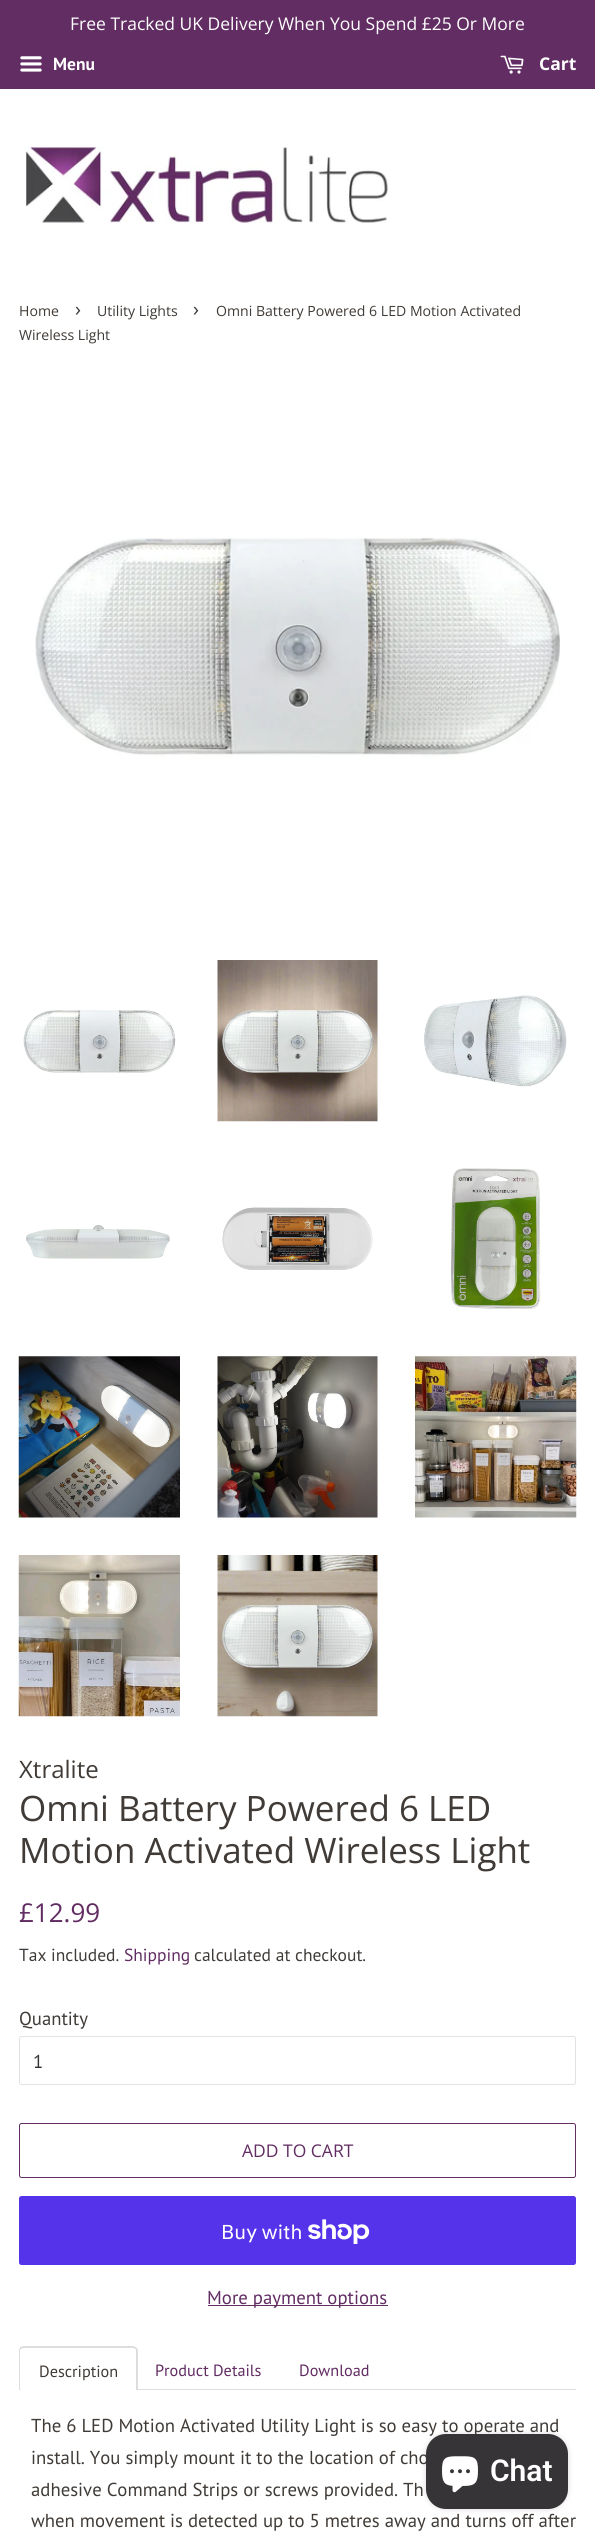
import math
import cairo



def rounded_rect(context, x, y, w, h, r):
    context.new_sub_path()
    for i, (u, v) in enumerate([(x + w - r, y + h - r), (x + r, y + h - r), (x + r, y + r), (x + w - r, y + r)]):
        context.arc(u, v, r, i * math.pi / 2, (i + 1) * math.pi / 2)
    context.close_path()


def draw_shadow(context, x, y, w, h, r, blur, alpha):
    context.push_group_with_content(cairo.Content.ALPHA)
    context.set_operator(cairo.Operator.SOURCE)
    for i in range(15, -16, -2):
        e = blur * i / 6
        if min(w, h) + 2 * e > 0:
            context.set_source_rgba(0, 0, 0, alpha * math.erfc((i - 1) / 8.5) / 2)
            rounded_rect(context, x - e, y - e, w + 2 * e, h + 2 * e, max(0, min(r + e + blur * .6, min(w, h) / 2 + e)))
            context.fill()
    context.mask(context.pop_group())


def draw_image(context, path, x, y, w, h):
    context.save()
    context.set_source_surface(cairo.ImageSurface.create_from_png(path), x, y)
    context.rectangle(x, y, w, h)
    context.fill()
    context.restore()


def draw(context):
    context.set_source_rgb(1, 1, 1)
    context.paint()
    context.set_source_rgb(98 / 255, 45 / 255, 99 / 255)
    context.rectangle(0, 0, 595, 89)
    context.fill()
    draw_image(context, "images/1.png", 20, 56, 22, 16)
    draw_image(context, "images/2.png", 500, 55, 24, 19)
    draw_image(context, "images/3.png", 24, 146, 364, 77)
    draw_image(context, "images/4.png", 35, 537, 525, 221)
    draw_image(context, "images/5.png", 23, 1010, 153, 63)
    draw_image(context, "images/6.png", 217, 960, 161, 162)
    draw_image(context, "images/7.png", 424, 995, 143, 92)
    draw_image(context, "images/8.png", 26, 1224, 144, 35)
    draw_image(context, "images/9.png", 222, 1207, 151, 63)
    draw_image(context, "images/10.png", 450, 1168, 91, 141)
    draw_image(context, "images/11.png", 18, 1356, 162, 162)
    draw_image(context, "images/12.png", 217, 1356, 161, 162)
    draw_image(context, "images/13.png", 415, 1356, 162, 162)
    draw_image(context, "images/14.png", 18, 1555, 162, 162)
    draw_image(context, "images/15.png", 217, 1555, 161, 162)
    rounded_rect(context, 19.5, 2036.5, 556, 48, 2)
    context.set_source_rgb(226 / 255, 226 / 255, 225 / 255)
    context.set_line_width(1)
    context.stroke()
    rounded_rect(context, 19.5, 2123.5, 556, 54, 2)
    context.set_source_rgb(98 / 255, 45 / 255, 99 / 255)
    context.stroke()
    context.set_source_rgb(84 / 255, 51 / 255, 235 / 255)
    rounded_rect(context, 19, 2196, 557, 69, 2.5)
    context.fill()
    draw_image(context, "images/16.png", 308, 2219, 62, 25)
    context.set_source_rgb(98 / 255, 45 / 255, 99 / 255)
    context.rectangle(208, 2305, 180, 1)
    context.fill()
    context.set_source_rgb(221 / 255, 221 / 255, 221 / 255)
    context.rectangle(138, 2389, 438, 1)
    context.fill()
    context.set_fill_rule(cairo.FillRule.EVEN_ODD)
    context.new_path()
    context.move_to(24, 2346)
    context.line_to(132, 2346)
    context.curve_to(135, 2346, 138, 2348, 138, 2351)
    context.line_to(138, 2390)
    context.line_to(19, 2390)
    context.line_to(19, 2351)
    context.curve_to(19, 2348, 21, 2346, 24, 2346)
    context.close_path()
    context.move_to(24, 2348)
    context.line_to(132, 2348)
    context.curve_to(135, 2348, 136, 2349, 136, 2351)
    context.line_to(136, 2390)
    context.line_to(20, 2390)
    context.line_to(20, 2351)
    context.curve_to(20, 2349, 22, 2348, 24, 2348)
    context.close_path()
    context.fill()
    context.set_source_rgb(0, 0, 0)
    draw_shadow(context, 426, 2434, 142, 75, 20, 3, 0.15)
    context.select_font_face("Open Sans")
    context.set_font_size(17.5)
    context.set_source_rgb(1, 1, 1)
    context.move_to(70, 30)
    context.show_text("Free Tracked UK Delivery When You Spend £25 Or More")
    context.select_font_face("PT Sans", cairo.FontSlant.NORMAL, cairo.FontWeight.BOLD)
    context.move_to(53, 70)
    context.show_text("Menu")
    context.select_font_face("Open Sans", cairo.FontSlant.NORMAL, cairo.FontWeight.BOLD)
    context.move_to(539, 70)
    context.show_text("Cart")
    context.select_font_face("Open Sans")
    context.set_font_size(14.1)
    context.set_source_rgb(64 / 255, 59 / 255, 55 / 255)
    context.move_to(19, 316)
    context.show_text("Home")
    context.set_font_size(20)
    context.move_to(75, 316)
    context.show_text("›")
    context.set_font_size(14.1)
    context.move_to(97, 316)
    context.show_text("Utility Lights")
    context.set_font_size(20)
    context.move_to(193, 316)
    context.show_text("›")
    context.set_font_size(14.1)
    context.move_to(216, 316)
    context.show_text("Omni Battery Powered 6 LED Motion Activated")
    context.move_to(19, 340)
    context.show_text("Wireless Light")
    context.set_font_size(24)
    context.move_to(19, 1778)
    context.show_text("Xtralite")
    context.set_font_size(35)
    context.move_to(19, 1821)
    context.show_text("Omni Battery Powered 6 LED")
    context.move_to(19, 1863)
    context.show_text("Motion Activated Wireless Light")
    context.set_font_size(26)
    context.set_source_rgb(98 / 255, 45 / 255, 99 / 255)
    context.move_to(19, 1922)
    context.show_text("£12.99")
    context.select_font_face("PT Sans")
    context.set_font_size(17.5)
    context.set_source_rgb(64 / 255, 59 / 255, 55 / 255)
    context.move_to(19, 1961)
    context.show_text("Tax included.")
    context.set_source_rgb(98 / 255, 45 / 255, 99 / 255)
    context.move_to(124, 1961)
    context.show_text("Shipping")
    context.set_source_rgb(64 / 255, 59 / 255, 55 / 255)
    context.move_to(194, 1961)
    context.show_text("calculated at checkout.")
    context.set_font_size(18.75)
    context.move_to(19, 2025)
    context.show_text("Quantity")
    context.set_source_rgb(51 / 255, 51 / 255, 51 / 255)
    context.move_to(33, 2068)
    context.show_text("1")
    context.select_font_face("Open Sans")
    context.set_font_size(17.5)
    context.set_source_rgb(98 / 255, 45 / 255, 99 / 255)
    context.move_to(242, 2157)
    context.show_text("ADD TO CART")
    context.select_font_face("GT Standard")
    context.set_font_size(20)
    context.set_source_rgb(1, 1, 1)
    context.move_to(221, 2239)
    context.show_text("Buy with")
    context.select_font_face("PT Sans")
    context.set_font_size(18.75)
    context.set_source_rgb(98 / 255, 45 / 255, 99 / 255)
    context.move_to(207, 2304)
    context.show_text("More payment options")
    context.set_font_size(16.25)
    context.set_source_rgb(64 / 255, 59 / 255, 55 / 255)
    context.move_to(39, 2377)
    context.show_text("Description")
    context.set_source_rgb(98 / 255, 45 / 255, 99 / 255)
    context.move_to(155, 2376)
    context.show_text("Product Details")
    context.move_to(299, 2376)
    context.show_text("Download")
    context.set_font_size(18.75)
    context.set_source_rgb(64 / 255, 59 / 255, 55 / 255)
    context.move_to(31, 2432)
    context.show_text("The 6 LED Motion Activated Utility Light is so easy to operate and")
    context.move_to(31, 2464)
    context.show_text("install. You simply mount it to the location of cho")
    context.move_to(31, 2496)
    context.show_text("adhesive Command Strips or screws provided. Th")
    context.move_to(31, 2527)
    context.show_text("when movement is detected up to 5 metres away and turns off after")
    context.set_source_rgb(55 / 255, 52 / 255, 56 / 255)
    rounded_rect(context, 426, 2434, 142, 75, 20)
    context.fill()
    draw_image(context, "images/17.png", 442, 2456, 36, 37)
    context.select_font_face("Roboto SemiBold")
    context.set_font_size(30)
    context.set_source_rgb(1, 1, 1)
    context.move_to(490, 2481)
    context.show_text("Chat")


surface = cairo.ImageSurface(cairo.Format.RGB24, 595, 2534)
context = cairo.Context(surface)
options = cairo.FontOptions()
options.set_hint_metrics(cairo.HintMetrics.OFF)
options.set_hint_style(cairo.HintStyle.NONE)
context.set_font_options(options)
context.set_miter_limit(4)
draw(context)
surface.write_to_png("out.png")
